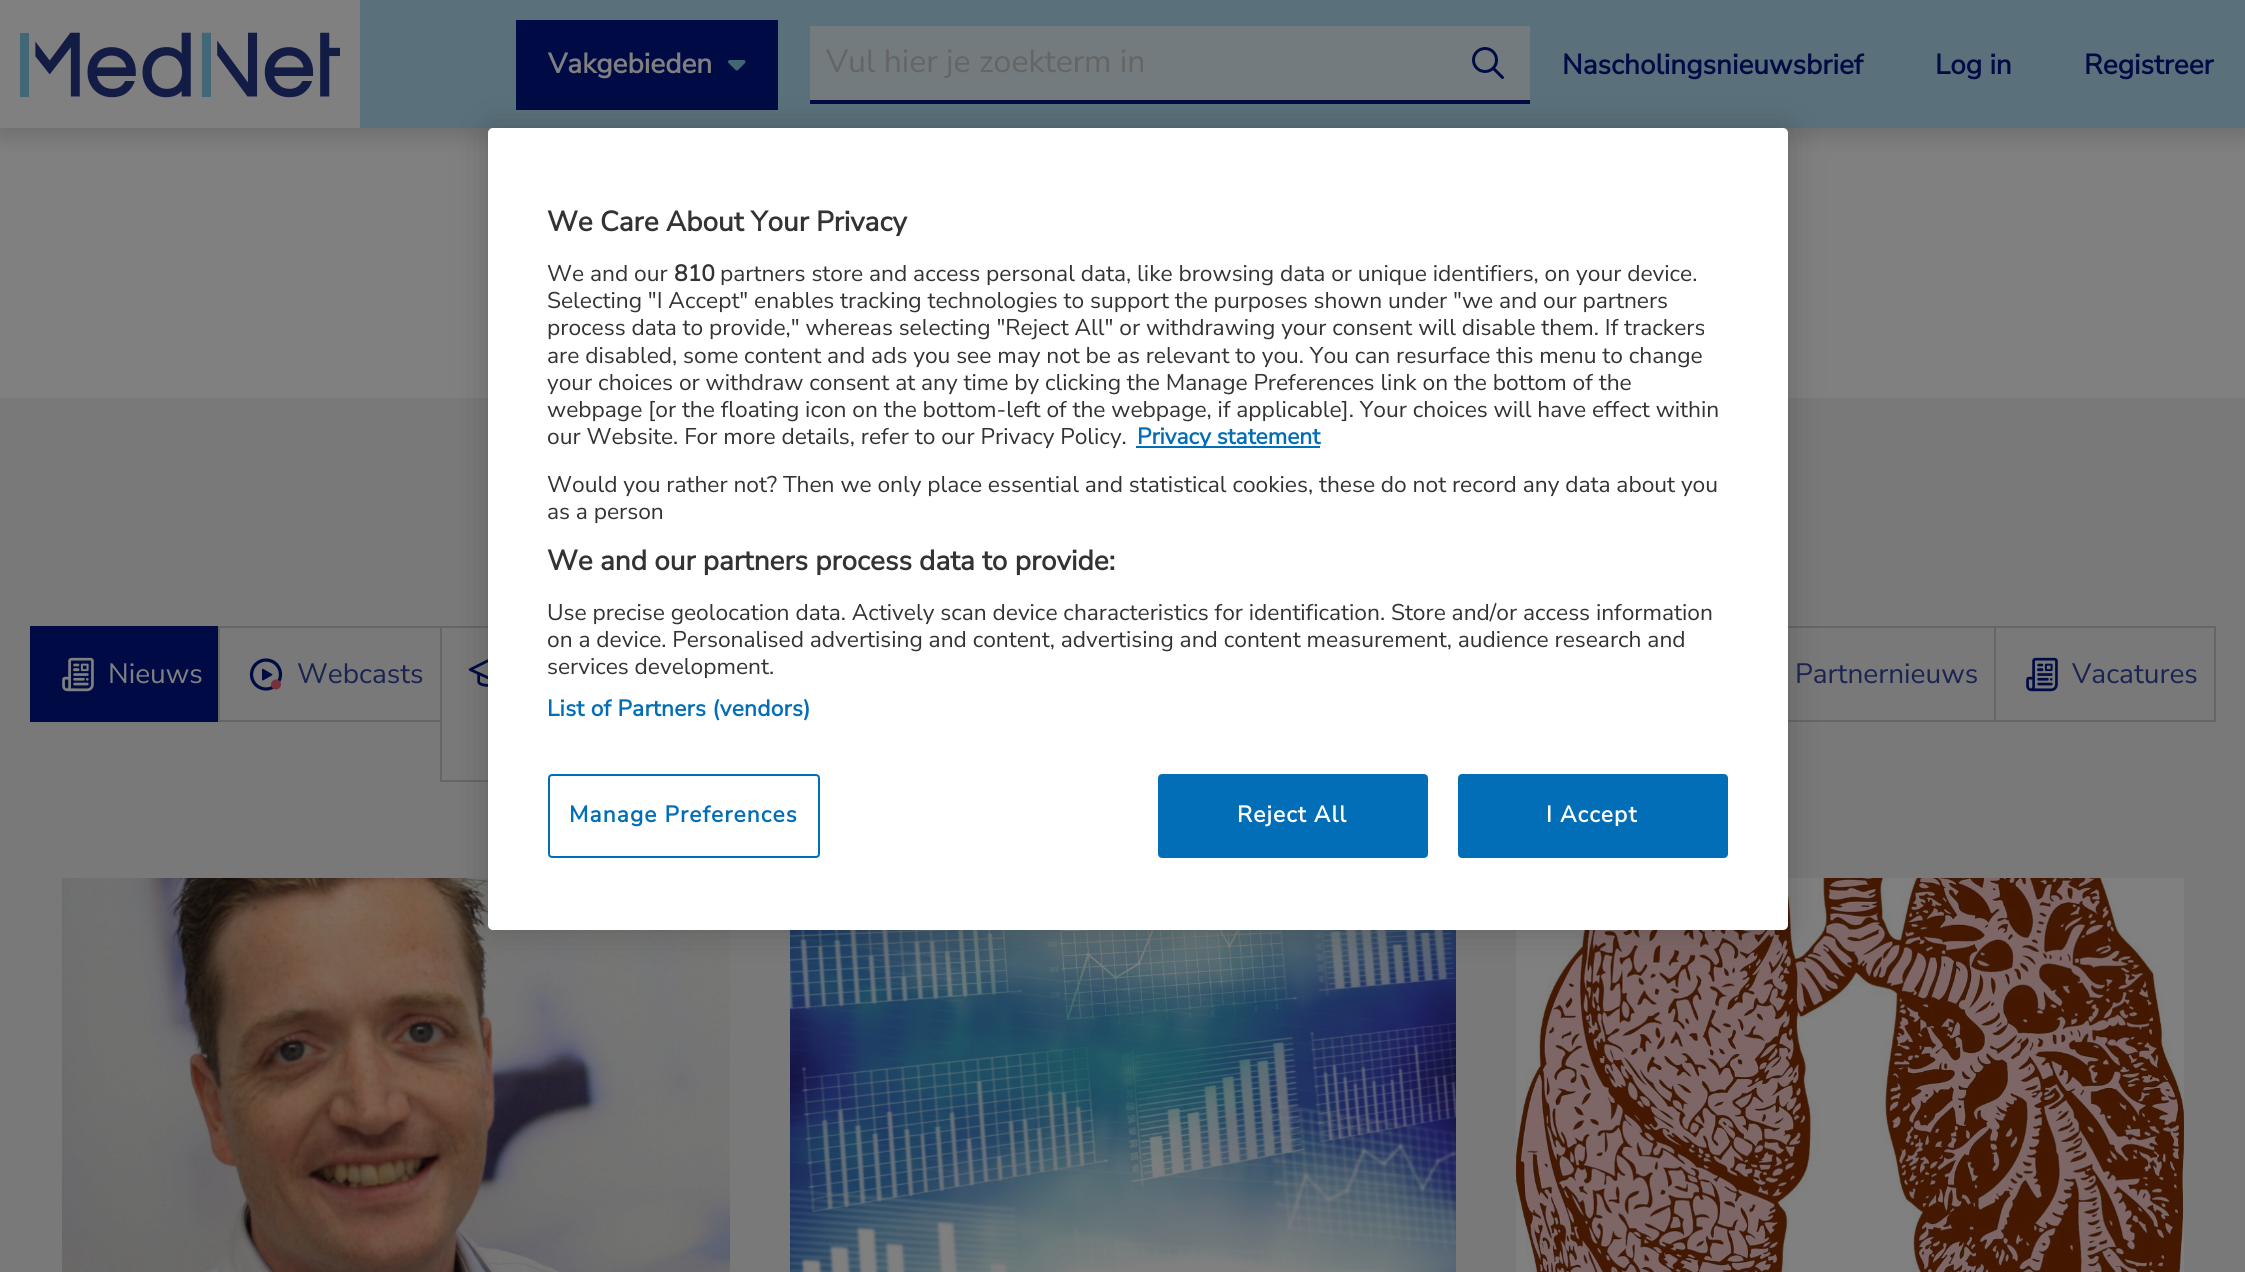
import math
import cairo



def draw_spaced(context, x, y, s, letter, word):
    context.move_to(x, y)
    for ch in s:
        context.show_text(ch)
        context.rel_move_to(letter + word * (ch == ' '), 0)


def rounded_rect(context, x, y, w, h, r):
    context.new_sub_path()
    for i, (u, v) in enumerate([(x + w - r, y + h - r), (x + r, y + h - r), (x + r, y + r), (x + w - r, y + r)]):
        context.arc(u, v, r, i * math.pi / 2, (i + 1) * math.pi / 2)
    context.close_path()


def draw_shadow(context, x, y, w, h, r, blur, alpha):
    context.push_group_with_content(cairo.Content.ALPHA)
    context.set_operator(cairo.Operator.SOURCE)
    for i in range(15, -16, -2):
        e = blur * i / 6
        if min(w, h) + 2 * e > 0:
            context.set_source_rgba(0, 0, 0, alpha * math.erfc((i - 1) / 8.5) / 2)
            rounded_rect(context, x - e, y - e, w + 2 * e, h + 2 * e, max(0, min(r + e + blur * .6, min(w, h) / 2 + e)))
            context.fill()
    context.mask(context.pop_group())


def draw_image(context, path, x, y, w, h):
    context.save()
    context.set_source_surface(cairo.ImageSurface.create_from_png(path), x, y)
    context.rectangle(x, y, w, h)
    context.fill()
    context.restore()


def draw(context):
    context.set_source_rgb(128 / 255, 128 / 255, 128 / 255)
    context.paint()
    context.set_source_rgb(0, 0, 0)
    draw_shadow(context, 0, 8, 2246, 128, 0, 10, 0.15)
    context.set_source_rgb(90 / 255, 113 / 255, 123 / 255)
    context.rectangle(360, 0, 1885, 128)
    context.fill()
    context.set_source_rgb(128 / 255, 128 / 255, 128 / 255)
    context.rectangle(0, 0, 360, 128)
    context.fill()
    draw_image(context, "images/1.png", 20, 32, 320, 66)
    context.set_source_rgb(0, 11 / 255, 69 / 255)
    context.rectangle(516, 20, 262, 90)
    context.fill()
    draw_image(context, "images/2.png", 728, 60, 18, 11)
    context.set_source_rgb(115 / 255, 123 / 255, 126 / 255)
    context.rectangle(810, 26, 720, 74)
    context.fill()
    context.set_source_rgb(0, 11 / 255, 69 / 255)
    context.rectangle(810, 100, 720, 4)
    context.fill()
    draw_image(context, "images/3.png", 1472, 47, 32, 32)
    context.set_source_rgb(121 / 255, 121 / 255, 121 / 255)
    context.rectangle(0, 398, 2245, 874)
    context.fill()
    context.set_source_rgb(102 / 255, 102 / 255, 102 / 255)
    context.rectangle(218, 626, 270, 2)
    context.fill()
    context.rectangle(218, 720, 222, 2)
    context.fill()
    context.rectangle(440, 780, 48, 2)
    context.fill()
    context.rectangle(440, 626, 2, 156)
    context.fill()
    draw_image(context, "images/6.png", 468, 659, 20, 28)
    context.rectangle(1788, 626, 206, 2)
    context.fill()
    context.rectangle(1788, 720, 206, 2)
    context.fill()
    draw_image(context, "images/8.png", 62, 878, 668, 394)
    draw_image(context, "images/9.png", 790, 930, 666, 342)
    draw_image(context, "images/10.png", 1516, 878, 668, 394)
    context.set_source_rgb(0, 0, 0)
    draw_shadow(context, 488, 128, 1300, 802, 5, 18, 0.2)
    context.set_source_rgb(1, 1, 1)
    rounded_rect(context, 488, 128, 1300, 802, 5)
    context.fill()
    context.set_source_rgb(1 / 255, 110 / 255, 183 / 255)
    context.rectangle(1136, 446, 184, 2)
    context.fill()
    rounded_rect(context, 549, 775, 270, 82, 3)
    context.stroke()
    rounded_rect(context, 1159, 775, 268, 82, 3)
    context.fill_preserve()
    context.stroke()
    rounded_rect(context, 1459, 775, 268, 82, 3)
    context.fill_preserve()
    context.stroke()
    context.set_source_rgb(0, 11 / 255, 69 / 255)
    context.rectangle(32, 628, 186, 92)
    context.fill()
    context.rectangle(30, 626, 188, 2)
    context.fill()
    context.rectangle(30, 720, 188, 2)
    context.fill()
    context.rectangle(30, 626, 2, 96)
    context.fill()
    draw_image(context, "images/4.png", 62, 657, 32, 35)
    context.set_source_rgb(102 / 255, 102 / 255, 102 / 255)
    context.rectangle(218, 626, 2, 96)
    context.fill()
    draw_image(context, "images/5.png", 249, 658, 34, 33)
    context.rectangle(1995, 627, 220, 94)
    context.stroke()
    draw_image(context, "images/7.png", 2026, 657, 32, 35)
    context.select_font_face("Nunito Sans", cairo.FontSlant.NORMAL, cairo.FontWeight.BOLD)
    context.set_font_size(28)
    context.set_source_rgb(128 / 255, 128 / 255, 128 / 255)
    context.move_to(548, 73)
    context.show_text("Vakgebieden")
    context.select_font_face("Nunito Sans ExtraLight")
    context.set_font_size(32)
    context.set_source_rgb(101 / 255, 101 / 255, 101 / 255)
    context.move_to(826, 72)
    context.show_text("Vul hier je zoekterm in")
    context.select_font_face("Nunito Sans", cairo.FontSlant.NORMAL, cairo.FontWeight.BOLD)
    context.set_font_size(28)
    context.set_source_rgb(0, 11 / 255, 69 / 255)
    context.move_to(1562, 74)
    context.show_text("Nascholingsnieuwsbrief")
    context.move_to(1935, 74)
    context.show_text("Log in")
    context.move_to(2084, 74)
    context.show_text("Registreer")
    context.set_source_rgb(51 / 255, 51 / 255, 51 / 255)
    context.move_to(547, 231)
    context.show_text("We Care About Your Privacy")
    context.select_font_face("Nunito Sans ExtraLight")
    context.set_font_size(22.75)
    context.move_to(547, 281)
    context.show_text("We and our")
    context.select_font_face("Nunito Sans", cairo.FontSlant.NORMAL, cairo.FontWeight.BOLD)
    context.move_to(674, 281)
    context.show_text("810")
    context.select_font_face("Nunito Sans ExtraLight")
    context.move_to(720, 281)
    context.show_text("partners store and access personal data, like browsing data or unique identifiers, on your device.")
    context.move_to(547, 308)
    context.show_text("Selecting \"I Accept\" enables tracking technologies to support the purposes shown under \"we and our partners")
    context.move_to(547, 335)
    context.show_text("process data to provide,\" whereas selecting \"Reject All\" or withdrawing your consent will disable them. If trackers")
    context.move_to(547, 363)
    context.show_text("are disabled, some content and ads you see may not be as relevant to you. You can resurface this menu to change")
    context.move_to(547, 390)
    context.show_text("your choices or withdraw consent at any time by clicking the Manage Preferences link on the bottom of the")
    context.move_to(547, 417)
    context.show_text("webpage [or the floating icon on the bottom-left of the webpage, if applicable]. Your choices will have effect within")
    context.move_to(547, 444)
    context.show_text("our Website. For more details, refer to our Privacy Policy.")
    context.select_font_face("Nunito Sans", cairo.FontSlant.NORMAL, cairo.FontWeight.BOLD)
    context.set_source_rgb(1 / 255, 110 / 255, 183 / 255)
    context.move_to(1137, 444)
    context.show_text("Privacy statement")
    context.select_font_face("Nunito Sans ExtraLight")
    context.set_source_rgb(51 / 255, 51 / 255, 51 / 255)
    context.move_to(547, 492)
    context.show_text("Would you rather not? Then we only place essential and statistical cookies, these do not record any data about you")
    context.move_to(547, 519)
    context.show_text("as a person")
    context.select_font_face("Nunito Sans", cairo.FontSlant.NORMAL, cairo.FontWeight.BOLD)
    context.set_font_size(28)
    context.move_to(547, 570)
    context.show_text("We and our partners process data to provide:")
    context.select_font_face("Nunito Sans ExtraLight")
    context.set_font_size(22.75)
    context.move_to(547, 620)
    context.show_text("Use precise geolocation data. Actively scan device characteristics for identification. Store and/or access information")
    context.move_to(547, 647)
    context.show_text("on a device. Personalised advertising and content, advertising and content measurement, audience research and")
    context.move_to(547, 674)
    context.show_text("services development.")
    context.select_font_face("Nunito Sans", cairo.FontSlant.NORMAL, cairo.FontWeight.BOLD)
    context.set_source_rgb(1 / 255, 110 / 255, 183 / 255)
    draw_spaced(context, 547, 716, "List of Partners (vendors)", 0.25, 0)
    draw_spaced(context, 569, 822, "Manage Preferences", 1.1, 0)
    context.set_source_rgb(1, 1, 1)
    draw_spaced(context, 1237, 822, "Reject All", 1.1, 0)
    draw_spaced(context, 1546, 822, "I Accept", 1.1, 0)
    context.select_font_face("Nunito Sans ExtraLight")
    context.set_font_size(28)
    context.set_source_rgb(128 / 255, 128 / 255, 128 / 255)
    context.move_to(108, 683)
    context.show_text("Nieuws")
    context.set_source_rgb(26 / 255, 35 / 255, 81 / 255)
    context.move_to(297, 683)
    context.show_text("Webcasts")
    context.move_to(1795, 683)
    context.show_text("Partnernieuws")
    context.move_to(2072, 683)
    context.show_text("Vacatures")


surface = cairo.ImageSurface(cairo.Format.RGB24, 2245, 1272)
context = cairo.Context(surface)
options = cairo.FontOptions()
options.set_hint_metrics(cairo.HintMetrics.OFF)
options.set_hint_style(cairo.HintStyle.NONE)
context.set_font_options(options)
context.set_miter_limit(4)
draw(context)
surface.write_to_png("out.png")
